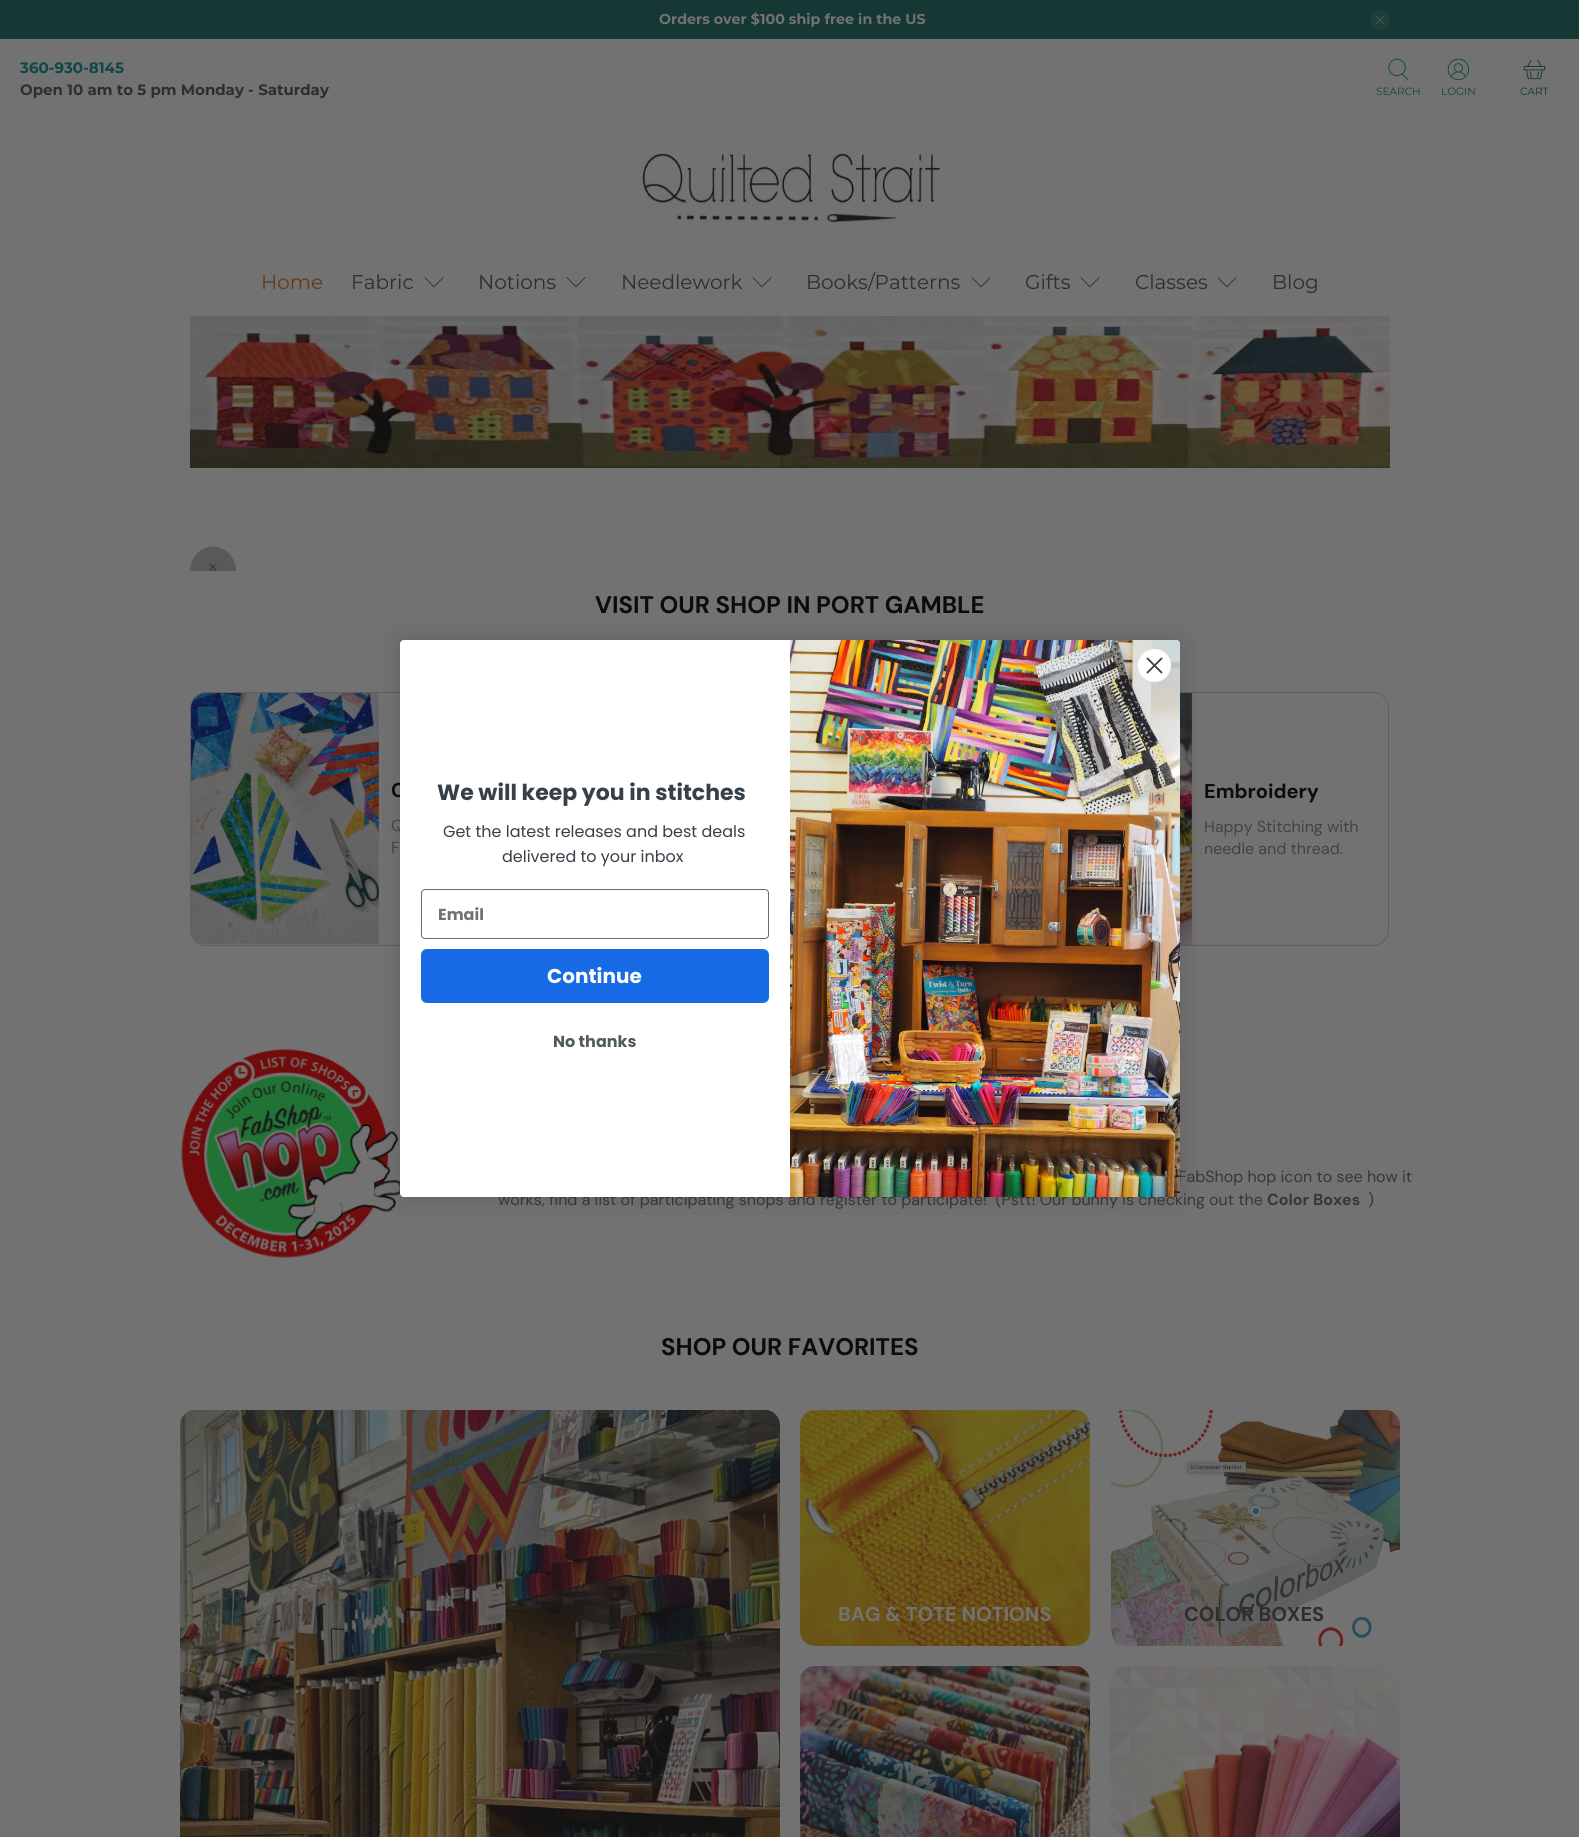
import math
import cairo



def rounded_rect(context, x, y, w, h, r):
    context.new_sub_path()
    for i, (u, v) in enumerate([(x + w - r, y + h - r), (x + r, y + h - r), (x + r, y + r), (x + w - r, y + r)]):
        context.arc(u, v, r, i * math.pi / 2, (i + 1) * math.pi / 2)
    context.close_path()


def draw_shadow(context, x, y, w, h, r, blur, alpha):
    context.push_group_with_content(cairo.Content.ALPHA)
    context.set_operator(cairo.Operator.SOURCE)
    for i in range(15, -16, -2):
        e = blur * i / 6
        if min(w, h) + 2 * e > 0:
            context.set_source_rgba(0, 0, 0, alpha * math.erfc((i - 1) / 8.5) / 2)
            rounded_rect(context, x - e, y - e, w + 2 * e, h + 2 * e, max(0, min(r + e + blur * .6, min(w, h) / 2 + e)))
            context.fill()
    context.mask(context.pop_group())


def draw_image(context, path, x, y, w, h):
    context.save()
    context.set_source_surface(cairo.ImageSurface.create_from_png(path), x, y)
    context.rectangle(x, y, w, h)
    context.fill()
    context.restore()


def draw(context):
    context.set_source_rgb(114 / 255, 114 / 255, 114 / 255)
    context.paint()
    context.set_source_rgb(21 / 255, 56 / 255, 52 / 255)
    context.rectangle(0, 0, 1579, 39)
    context.fill()
    context.set_source_rgb(30 / 255, 62 / 255, 58 / 255)
    context.arc(1380, 20, 10, 0, 2 * math.pi)
    context.fill()
    draw_image(context, "images/1.png", 1375, 15, 10, 10)
    draw_image(context, "images/2.png", 1388, 58, 21, 22)
    draw_image(context, "images/3.png", 1447, 58, 22, 23)
    draw_image(context, "images/4.png", 1523, 59, 23, 21)
    draw_image(context, "images/5.png", 642, 153, 298, 70)
    draw_image(context, "images/6.png", 424, 277, 20, 11)
    draw_image(context, "images/6.png", 566, 277, 20, 11)
    draw_image(context, "images/6.png", 752, 277, 20, 11)
    draw_image(context, "images/6.png", 971, 277, 20, 11)
    draw_image(context, "images/6.png", 1080, 277, 20, 11)
    draw_image(context, "images/6.png", 1217, 277, 20, 11)
    draw_image(context, "images/7.png", 190, 316, 1200, 152)
    context.save()
    context.rectangle(190, 316, 1200, 255)
    context.clip()
    context.set_source_rgb(100 / 255, 100 / 255, 100 / 255)
    context.new_path()
    context.move_to(213, 546.5)
    context.curve_to(225.5, 546.5, 236, 557.5, 236, 571)
    context.curve_to(236, 584.5, 225.5, 595.5, 213, 595.5)
    context.curve_to(200.5, 595.5, 190, 584.5, 190, 571)
    context.curve_to(190, 557.5, 200.5, 546.5, 213, 546.5)
    context.close_path()
    context.fill()
    context.restore()
    context.save()
    context.rectangle(202, 559, 22, 12)
    context.clip()
    context.new_path()
    context.move_to(216, 575)
    context.line_to(210, 569.5)
    context.line_to(216, 564)
    context.set_source_rgb(76 / 255, 76 / 255, 78 / 255)
    context.set_line_width(1.8)
    context.set_line_cap(cairo.LineCap.ROUND)
    context.set_line_join(cairo.LineJoin.ROUND)
    context.stroke()
    context.restore()
    context.save()
    context.rectangle(190, 316, 1200, 255)
    context.clip()
    context.set_source_rgba(60 / 255, 60 / 255, 60 / 255, 0.26)
    context.new_path()
    context.move_to(213, 546.5)
    context.curve_to(225.5, 546.5, 236, 557.5, 236, 571)
    context.curve_to(236, 584.5, 225.5, 595.5, 213, 595.5)
    context.curve_to(200.5, 595.5, 190, 584.5, 190, 571)
    context.curve_to(190, 557.5, 200.5, 546.5, 213, 546.5)
    context.close_path()
    context.fill()
    context.restore()
    context.save()
    context.rectangle(202, 559, 22, 12)
    context.clip()
    context.new_path()
    context.move_to(210, 575)
    context.line_to(216, 569.5)
    context.line_to(210, 564)
    context.set_source_rgba(19 / 255, 22 / 255, 28 / 255, 0.3)
    context.set_line_width(1.8)
    context.set_line_cap(cairo.LineCap.ROUND)
    context.set_line_join(cairo.LineJoin.ROUND)
    context.stroke()
    context.restore()
    rounded_rect(context, 190.5, 692.5, 385, 253, 15.5)
    context.set_source_rgb(94 / 255, 94 / 255, 94 / 255)
    context.set_line_width(1)
    context.stroke()
    draw_image(context, "images/8.png", 191, 693, 188, 251)
    rounded_rect(context, 1003.5, 692.5, 385, 253, 15.5)
    context.stroke()
    draw_image(context, "images/9.png", 1180, 693, 12, 252)
    draw_image(context, "images/10.png", 181, 1049, 220, 210)
    draw_image(context, "images/11.png", 180, 1410, 600, 427)
    draw_image(context, "images/12.png", 800, 1410, 290, 236)
    draw_image(context, "images/13.png", 1110, 1410, 290, 236)
    draw_image(context, "images/14.png", 800, 1666, 290, 171)
    draw_image(context, "images/15.png", 1110, 1666, 290, 171)
    context.set_source_rgb(0, 0, 0)
    draw_shadow(context, 400, 640, 780, 557, 4, 15, 0.15)
    context.select_font_face("Montserrat", cairo.FontSlant.NORMAL, cairo.FontWeight.BOLD)
    context.set_font_size(14.25)
    context.set_source_rgb(114 / 255, 114 / 255, 114 / 255)
    context.move_to(659, 24)
    context.show_text("Orders over $100 ship free in the US")
    context.set_font_size(15)
    context.set_source_rgb(13 / 255, 72 / 255, 66 / 255)
    context.move_to(20, 73)
    context.show_text("360-930-8145")
    context.set_source_rgb(46 / 255, 46 / 255, 46 / 255)
    context.move_to(20, 95)
    context.show_text("Open 10 am to 5 pm Monday - Saturday")
    context.select_font_face("Montserrat")
    context.set_font_size(10.5)
    context.set_source_rgb(13 / 255, 72 / 255, 66 / 255)
    context.move_to(1376, 95)
    context.show_text("SEARCH")
    context.move_to(1441, 95)
    context.show_text("LOGIN")
    context.set_source_rgb(21 / 255, 56 / 255, 52 / 255)
    context.move_to(1520, 95)
    context.show_text("CART")
    context.set_font_size(20)
    context.set_source_rgb(103 / 255, 56 / 255, 24 / 255)
    context.move_to(261, 289)
    context.show_text("Home")
    context.set_source_rgb(46 / 255, 46 / 255, 46 / 255)
    context.move_to(351, 289)
    context.show_text("Fabric")
    context.move_to(478, 289)
    context.show_text("Notions")
    context.move_to(621, 289)
    context.show_text("Needlework")
    context.move_to(806, 289)
    context.show_text("Books/Patterns")
    context.move_to(1025, 289)
    context.show_text("Gifts")
    context.move_to(1135, 289)
    context.show_text("Classes")
    context.move_to(1272, 289)
    context.show_text("Blog")
    context.select_font_face("DM Sans", cairo.FontSlant.NORMAL, cairo.FontWeight.BOLD)
    context.set_font_size(24)
    context.set_source_rgb(12 / 255, 12 / 255, 12 / 255)
    context.move_to(595, 613)
    context.show_text("VISIT OUR SHOP IN PORT GAMBLE")
    context.set_font_size(20)
    context.move_to(391, 797)
    context.show_text("C")
    context.select_font_face("DM Sans")
    context.set_font_size(16)
    context.set_source_rgb(66 / 255, 66 / 255, 66 / 255)
    context.move_to(391, 831)
    context.show_text("Q")
    context.move_to(391, 853)
    context.show_text("F")
    context.select_font_face("DM Sans", cairo.FontSlant.NORMAL, cairo.FontWeight.BOLD)
    context.set_font_size(20)
    context.set_source_rgb(12 / 255, 12 / 255, 12 / 255)
    context.move_to(1204, 798)
    context.show_text("Embroidery")
    context.select_font_face("DM Sans")
    context.set_font_size(16)
    context.set_source_rgb(66 / 255, 66 / 255, 66 / 255)
    context.move_to(1204, 832)
    context.show_text("Happy Stitching with")
    context.move_to(1204, 854)
    context.show_text("needle and thread.")
    context.set_source_rgb(55 / 255, 54 / 255, 54 / 255)
    context.move_to(1178, 1182)
    context.show_text("FabShop hop icon to see how it")
    context.move_to(498, 1205)
    context.show_text("works, find a list of participating shops and register to participate!  (Pstt! Our bunny is checking out the")
    context.select_font_face("DM Sans", cairo.FontSlant.NORMAL, cairo.FontWeight.BOLD)
    context.move_to(1267, 1205)
    context.show_text("Color Boxes")
    context.select_font_face("DM Sans")
    context.move_to(1368, 1205)
    context.show_text(")")
    context.select_font_face("DM Sans", cairo.FontSlant.NORMAL, cairo.FontWeight.BOLD)
    context.set_font_size(24)
    context.set_source_rgb(12 / 255, 12 / 255, 12 / 255)
    context.move_to(661, 1355)
    context.show_text("SHOP OUR FAVORITES")
    context.set_font_size(20)
    context.set_source_rgb(114 / 255, 114 / 255, 114 / 255)
    context.move_to(838, 1621)
    context.show_text("BAG & TOTE NOTIONS")
    context.set_source_rgb(46 / 255, 46 / 255, 46 / 255)
    context.move_to(1184, 1621)
    context.show_text("COLOR BOXES")
    context.set_source_rgb(1, 1, 1)
    rounded_rect(context, 400, 640, 780, 557, 4)
    context.fill()
    context.select_font_face("Poppins", cairo.FontSlant.NORMAL, cairo.FontWeight.BOLD)
    context.set_font_size(22)
    context.set_source_rgb(55 / 255, 63 / 255, 71 / 255)
    context.move_to(437, 800)
    context.show_text("We will keep you in stitches")
    context.select_font_face("Poppins")
    context.set_font_size(16)
    context.move_to(443, 837)
    context.show_text("Get the latest releases and best deals")
    context.move_to(502, 862)
    context.show_text("delivered to your inbox")
    rounded_rect(context, 421.5, 889.5, 347, 49, 3.5)
    context.set_source_rgb(96 / 255, 106 / 255, 114 / 255)
    context.stroke()
    context.select_font_face("Poppins", cairo.FontSlant.NORMAL, cairo.FontWeight.BOLD)
    context.set_source_rgb(114 / 255, 114 / 255, 114 / 255)
    context.move_to(438, 920)
    context.show_text("Email")
    context.set_source_rgb(23 / 255, 107 / 255, 229 / 255)
    rounded_rect(context, 421, 949, 348, 54, 6)
    context.fill()
    context.set_font_size(20)
    context.set_source_rgb(1, 1, 1)
    context.move_to(547, 983)
    context.show_text("Continue")
    context.set_font_size(16)
    context.set_source_rgb(80 / 255, 91 / 255, 94 / 255)
    context.move_to(553, 1047)
    context.show_text("No thanks")
    draw_image(context, "images/16.png", 790, 640, 390, 557)
    context.set_source_rgb(1, 1, 1)
    context.arc(1154.5, 665.5, 16.5, 0, 2 * math.pi)
    context.fill()
    context.new_path()
    context.move_to(1147.5, 658.5)
    context.line_to(1161.5, 672.5)
    context.move_to(1147.5, 672.5)
    context.line_to(1161.5, 658.5)
    context.close_path()
    context.set_source_rgb(55 / 255, 63 / 255, 71 / 255)
    context.set_line_width(1.8)
    context.set_line_cap(cairo.LineCap.ROUND)
    context.set_line_join(cairo.LineJoin.ROUND)
    context.stroke()


surface = cairo.ImageSurface(cairo.Format.RGB24, 1579, 1837)
context = cairo.Context(surface)
options = cairo.FontOptions()
options.set_hint_metrics(cairo.HintMetrics.OFF)
options.set_hint_style(cairo.HintStyle.NONE)
context.set_font_options(options)
context.set_miter_limit(4)
draw(context)
surface.write_to_png("out.png")
